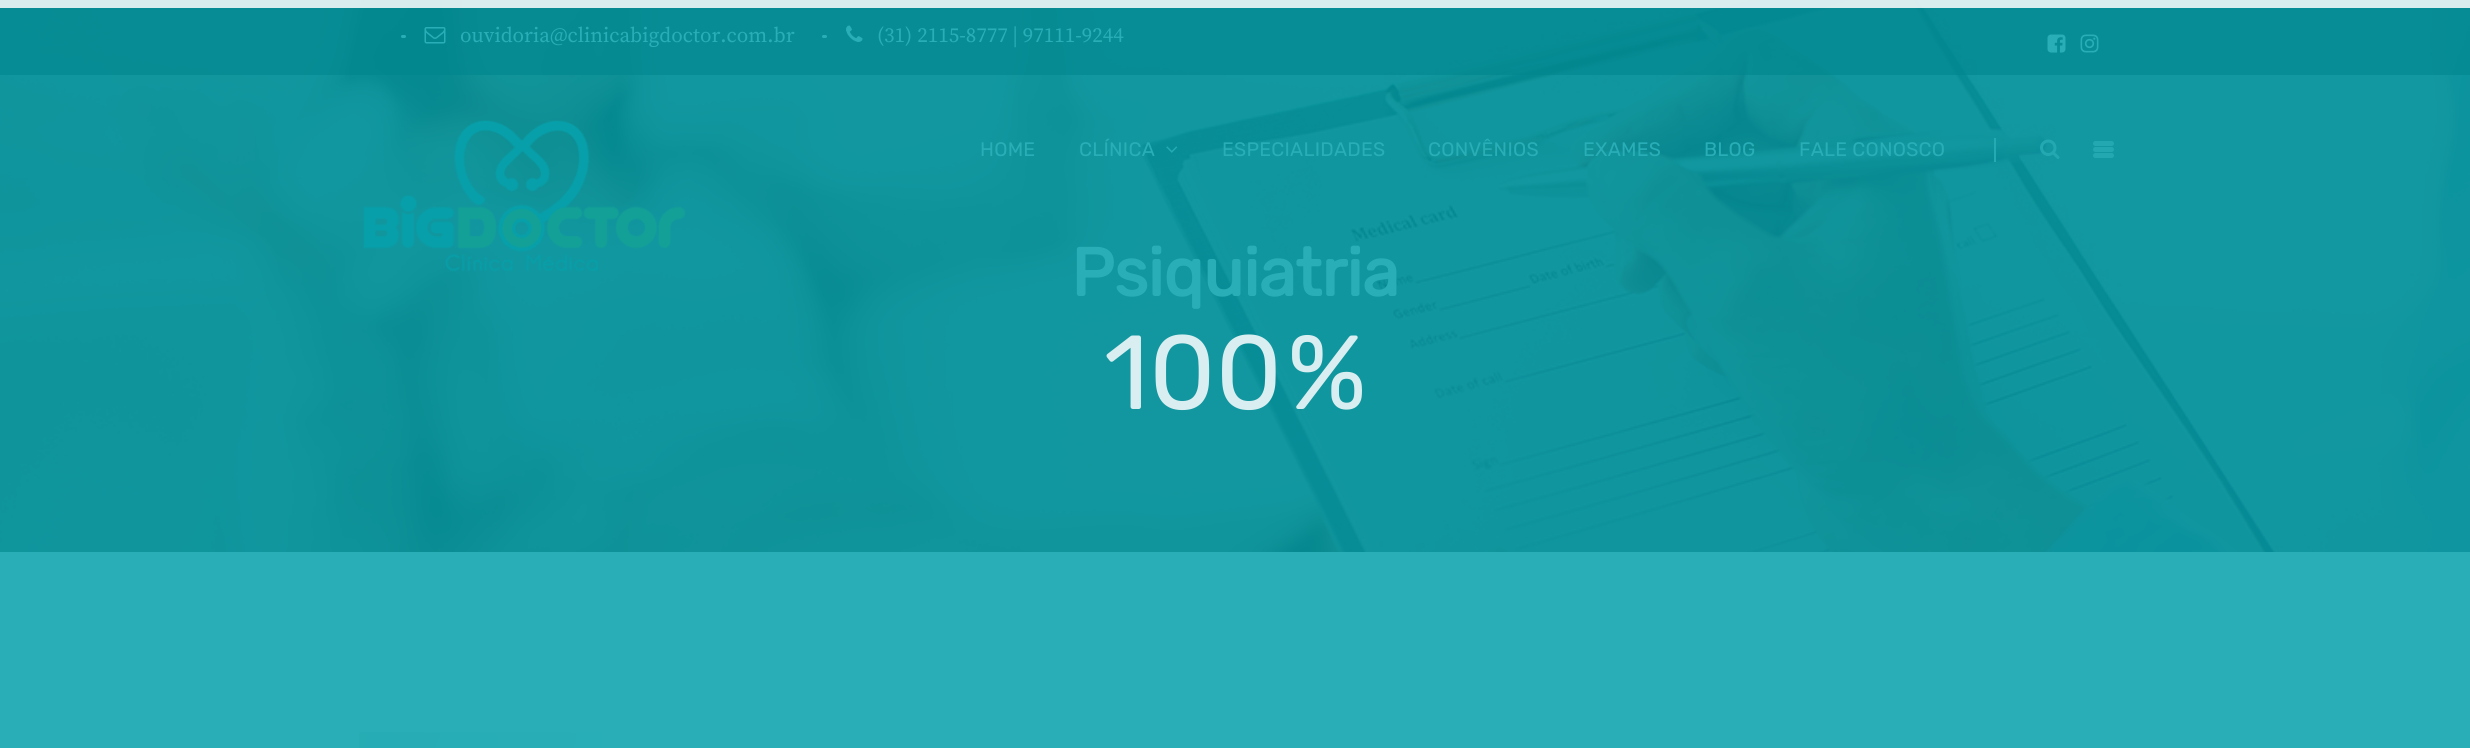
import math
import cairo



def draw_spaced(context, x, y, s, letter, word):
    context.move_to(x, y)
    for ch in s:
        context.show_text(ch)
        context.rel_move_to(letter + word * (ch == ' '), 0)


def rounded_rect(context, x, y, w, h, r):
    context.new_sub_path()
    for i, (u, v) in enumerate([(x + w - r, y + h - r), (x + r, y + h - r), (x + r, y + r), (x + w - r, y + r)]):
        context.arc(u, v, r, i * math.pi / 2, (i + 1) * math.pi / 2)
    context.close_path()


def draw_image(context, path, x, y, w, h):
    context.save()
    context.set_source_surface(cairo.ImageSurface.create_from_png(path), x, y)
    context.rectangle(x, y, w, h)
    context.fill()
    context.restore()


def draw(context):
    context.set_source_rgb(41 / 255, 174 / 255, 183 / 255)
    context.paint()
    draw_image(context, "images/8.png", 0, 0, 2470, 552)
    context.set_source_rgba(0, 134 / 255, 142 / 255, 0.6)
    context.rectangle(0, 0, 2470, 75)
    context.fill()
    context.set_source_rgb(41 / 255, 174 / 255, 183 / 255)
    rounded_rect(context, 401, 35, 5, 3, 1.5)
    context.fill()
    draw_image(context, "images/1.png", 424, 27, 22, 17)
    rounded_rect(context, 822, 35, 5, 3, 1.5)
    context.fill()
    draw_image(context, "images/2.png", 846, 25, 17, 17)
    draw_image(context, "images/3.png", 2047, 34, 19, 19)
    draw_image(context, "images/4.png", 2080, 34, 19, 19)
    draw_image(context, "images/5.png", 363, 120, 323, 152)
    draw_image(context, "images/6.png", 1166, 146, 12, 7)
    context.set_source_rgb(36 / 255, 170 / 255, 178 / 255)
    context.rectangle(1994, 138, 2, 24)
    context.fill()
    draw_image(context, "images/7.png", 2040, 139, 20, 20)
    context.set_source_rgb(35 / 255, 168 / 255, 177 / 255)
    rounded_rect(context, 2093, 147, 21, 5, 2.5)
    context.fill()
    rounded_rect(context, 2093, 141, 21, 5, 2.5)
    context.fill()
    rounded_rect(context, 2093, 153, 21, 5, 2.5)
    context.fill()
    draw_image(context, "images/9.png", 359, 732, 243, 16)
    context.set_source_rgba(1, 1, 1, 0.84)
    context.rectangle(0, 0, 2470, 8)
    context.fill()
    context.select_font_face("Source Serif Pro")
    context.set_font_size(21)
    context.set_source_rgb(41 / 255, 174 / 255, 183 / 255)
    context.move_to(460, 42)
    context.show_text("ouvidoria@clinicabigdoctor.com.br")
    context.move_to(877, 42)
    context.show_text("(31) 2115-8777 | 97111-9244")
    context.select_font_face("Rubik Light")
    context.set_font_size(19.5)
    draw_spaced(context, 980, 156, "HOME", 0.25, 0)
    draw_spaced(context, 1079, 156, "CLÍNICA", 0.25, 0)
    draw_spaced(context, 1222, 156, "ESPECIALIDADES", 0.25, 0)
    draw_spaced(context, 1428, 156, "CONVÊNIOS", 0.25, 0)
    draw_spaced(context, 1583, 156, "EXAMES", 0.25, 0)
    draw_spaced(context, 1704, 156, "BLOG", 0.25, 0)
    draw_spaced(context, 1799, 156, "FALE CONOSCO", 0.25, 0)
    context.select_font_face("Rubik", cairo.FontSlant.NORMAL, cairo.FontWeight.BOLD)
    context.set_font_size(67.5)
    draw_spaced(context, 1071, 296, "Psiquiatria", -0.6, 0)
    context.select_font_face("Rubik Light")
    context.set_font_size(105)
    context.set_source_rgb(217 / 255, 238 / 255, 240 / 255)
    context.move_to(1104, 409)
    context.show_text("100")
    context.move_to(1287, 409)
    context.show_text("%")


surface = cairo.ImageSurface(cairo.Format.RGB24, 2470, 748)
context = cairo.Context(surface)
options = cairo.FontOptions()
options.set_hint_metrics(cairo.HintMetrics.OFF)
options.set_hint_style(cairo.HintStyle.NONE)
context.set_font_options(options)
context.set_miter_limit(4)
draw(context)
surface.write_to_png("out.png")
